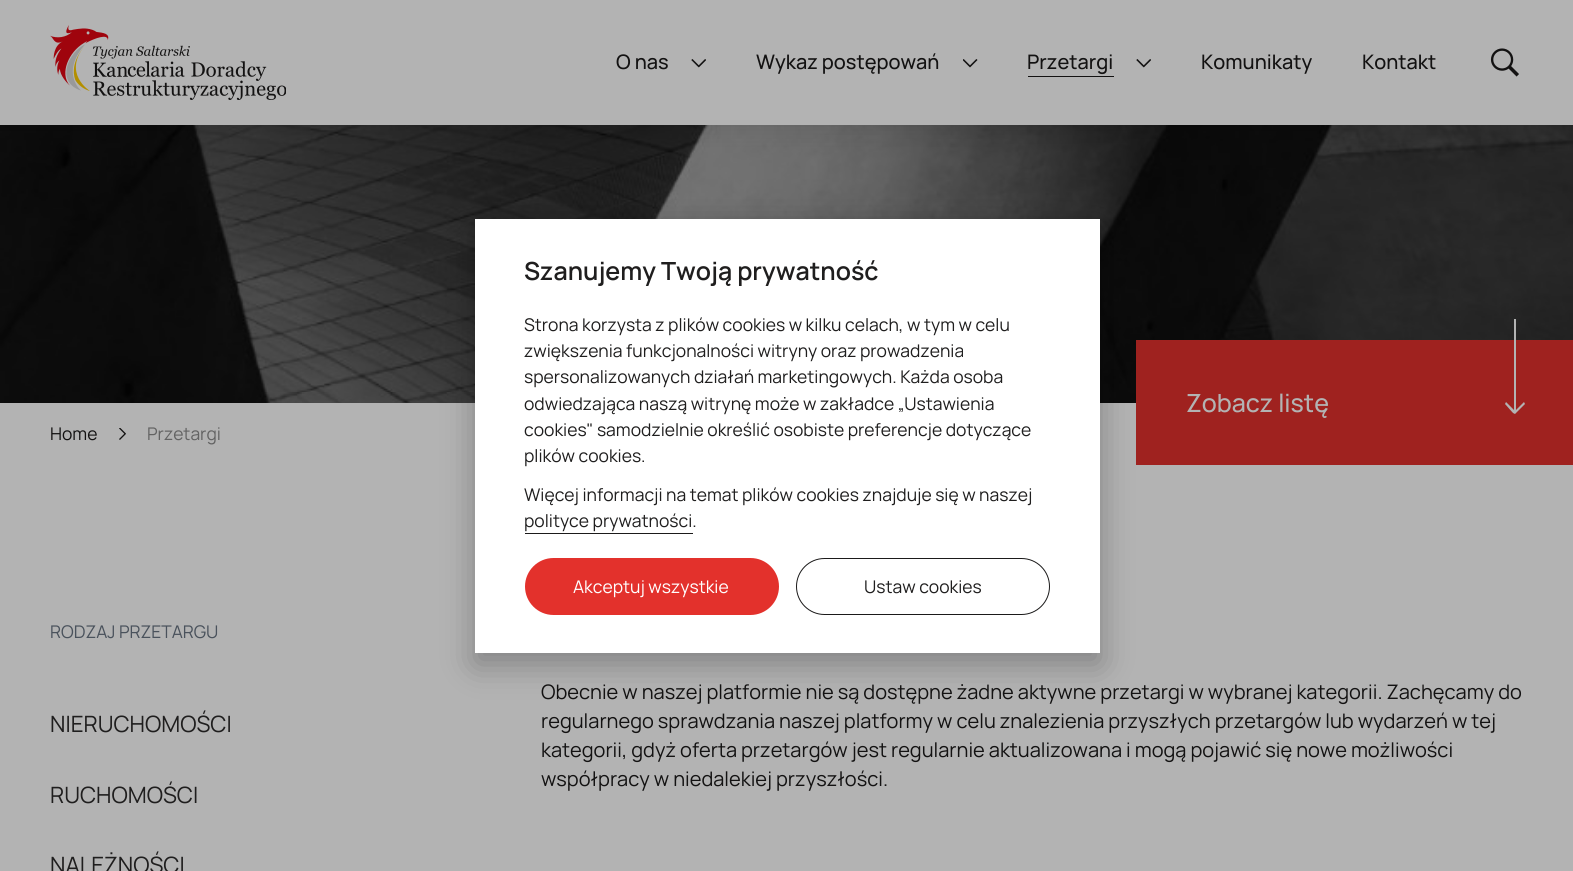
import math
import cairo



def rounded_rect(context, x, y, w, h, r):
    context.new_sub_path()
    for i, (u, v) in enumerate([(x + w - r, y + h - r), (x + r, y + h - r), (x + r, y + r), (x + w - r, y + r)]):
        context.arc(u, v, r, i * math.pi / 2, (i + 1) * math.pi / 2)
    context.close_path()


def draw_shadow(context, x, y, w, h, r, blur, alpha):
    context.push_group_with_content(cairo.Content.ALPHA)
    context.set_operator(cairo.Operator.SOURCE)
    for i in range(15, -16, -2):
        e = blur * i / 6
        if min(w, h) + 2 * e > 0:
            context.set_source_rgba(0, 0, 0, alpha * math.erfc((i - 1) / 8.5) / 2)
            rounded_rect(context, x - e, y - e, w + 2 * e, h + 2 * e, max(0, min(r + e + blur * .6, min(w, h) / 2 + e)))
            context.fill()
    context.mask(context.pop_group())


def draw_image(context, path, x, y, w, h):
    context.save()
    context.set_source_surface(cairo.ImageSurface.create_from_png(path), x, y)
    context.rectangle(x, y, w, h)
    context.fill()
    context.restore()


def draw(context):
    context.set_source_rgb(179 / 255, 179 / 255, 179 / 255)
    context.paint()
    draw_image(context, "images/5.png", 0, 125, 1573, 278)
    context.set_source_rgb(0, 0, 0)
    draw_shadow(context, -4, -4, 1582, 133, 0, 12.5, 0.1)
    context.set_source_rgb(179 / 255, 179 / 255, 179 / 255)
    context.rectangle(0, 0, 1573, 125)
    context.fill()
    draw_image(context, "images/1.png", 50, 25, 236, 75)
    draw_image(context, "images/2.png", 691, 59, 15, 9)
    draw_image(context, "images/3.png", 963, 59, 15, 9)
    draw_image(context, "images/2.png", 1136, 59, 15, 9)
    context.set_source_rgb(19 / 255, 18 / 255, 18 / 255)
    context.rectangle(1028, 76, 86, 1)
    context.fill()
    draw_image(context, "images/4.png", 1490, 48, 29, 29)
    context.set_source_rgb(159 / 255, 34 / 255, 31 / 255)
    context.rectangle(1136, 340, 437, 125)
    context.fill()
    context.set_source_rgb(2 / 255, 2 / 255, 3 / 255)
    draw_shadow(context, 475, 230, 625, 434, 0, 16.5, 0.28)
    context.set_source_rgb(1, 1, 1)
    context.rectangle(475, 219, 625, 434)
    context.fill()
    context.set_source_rgb(27 / 255, 26 / 255, 26 / 255)
    context.rectangle(525, 533, 168, 1)
    context.fill()
    context.set_source_rgb(227 / 255, 49 / 255, 44 / 255)
    rounded_rect(context, 525, 558, 254, 57, 28.5)
    context.fill()
    rounded_rect(context, 796.5, 558.5, 253, 56, 28)
    context.set_source_rgb(27 / 255, 26 / 255, 26 / 255)
    context.set_line_width(1)
    context.stroke()
    context.set_source_rgb(179 / 255, 179 / 255, 179 / 255)
    context.new_path()
    context.move_to(1513, 413)
    context.line_to(1505, 404)
    context.line_to(1506, 402)
    context.line_to(1514, 410)
    context.line_to(1514, 319)
    context.line_to(1516, 319)
    context.line_to(1516, 410)
    context.line_to(1524, 402)
    context.line_to(1525, 404)
    context.line_to(1515, 414)
    context.close_path()
    context.fill()
    draw_image(context, "images/6.png", 119, 428, 7, 12)
    context.select_font_face("Manrope Medium")
    context.set_font_size(20)
    context.set_source_rgb(19 / 255, 18 / 255, 18 / 255)
    context.move_to(616, 69)
    context.show_text("O nas")
    context.move_to(756, 69)
    context.show_text("Wykaz postępowań")
    context.move_to(1027, 69)
    context.show_text("Przetargi")
    context.move_to(1201, 69)
    context.show_text("Komunikaty")
    context.move_to(1362, 69)
    context.show_text("Kontakt")
    context.select_font_face("Manrope SemiBold")
    context.set_font_size(25)
    context.set_source_rgb(31 / 255, 30 / 255, 30 / 255)
    context.move_to(524, 280)
    context.show_text("Szanujemy Twoją prywatność")
    context.select_font_face("Manrope")
    context.set_font_size(17.5)
    context.move_to(524, 331)
    context.show_text("Strona korzysta z plików cookies w kilku celach, w tym w celu")
    context.move_to(524, 357)
    context.show_text("zwiększenia funkcjonalności witryny oraz prowadzenia")
    context.move_to(524, 383)
    context.show_text("spersonalizowanych działań marketingowych. Każda osoba")
    context.move_to(524, 410)
    context.show_text("odwiedzająca naszą witrynę może w zakładce „Ustawienia")
    context.move_to(524, 436)
    context.show_text("cookies\" samodzielnie określić osobiste preferencje dotyczące")
    context.move_to(524, 462)
    context.show_text("plików cookies.")
    context.move_to(524, 501)
    context.show_text("Więcej informacji na temat plików cookies znajduje się w naszej")
    context.move_to(524, 527)
    context.show_text("polityce prywatności.")
    context.set_source_rgb(1, 1, 1)
    context.move_to(573, 593)
    context.show_text("Akceptuj wszystkie")
    context.set_source_rgb(31 / 255, 30 / 255, 30 / 255)
    context.move_to(864, 593)
    context.show_text("Ustaw cookies")
    context.select_font_face("Manrope Medium")
    context.set_font_size(25)
    context.set_source_rgb(179 / 255, 179 / 255, 179 / 255)
    context.move_to(1186, 412)
    context.show_text("Zobacz listę")
    context.select_font_face("Manrope")
    context.set_font_size(17.5)
    context.set_source_rgb(19 / 255, 18 / 255, 18 / 255)
    context.move_to(50, 440)
    context.show_text("Home")
    context.set_source_rgb(99 / 255, 99 / 255, 99 / 255)
    context.move_to(147, 440)
    context.show_text("Przetargi")
    context.set_source_rgb(74 / 255, 82 / 255, 92 / 255)
    context.move_to(50, 638)
    context.show_text("RODZAJ PRZETARGU")
    context.set_font_size(22.5)
    context.set_source_rgb(31 / 255, 30 / 255, 30 / 255)
    context.move_to(50, 732)
    context.show_text("NIERUCHOMOŚCI")
    context.move_to(50, 803)
    context.show_text("RUCHOMOŚCI")
    context.move_to(50, 873)
    context.show_text("NALEŻNOŚCI")
    context.set_font_size(20)
    context.set_source_rgb(19 / 255, 18 / 255, 18 / 255)
    context.move_to(541, 699)
    context.show_text("Obecnie w naszej platformie nie są dostępne żadne aktywne przetargi w wybranej kategorii. Zachęcamy do")
    context.move_to(541, 728)
    context.show_text("regularnego sprawdzania naszej platformy w celu znalezienia przyszłych przetargów lub wydarzeń w tej")
    context.move_to(541, 757)
    context.show_text("kategorii, gdyż oferta przetargów jest regularnie aktualizowana i mogą pojawić się nowe możliwości")
    context.move_to(541, 786)
    context.show_text("współpracy w niedalekiej przyszłości.")


surface = cairo.ImageSurface(cairo.Format.RGB24, 1573, 871)
context = cairo.Context(surface)
options = cairo.FontOptions()
options.set_hint_metrics(cairo.HintMetrics.OFF)
options.set_hint_style(cairo.HintStyle.NONE)
context.set_font_options(options)
context.set_miter_limit(4)
draw(context)
surface.write_to_png("out.png")
